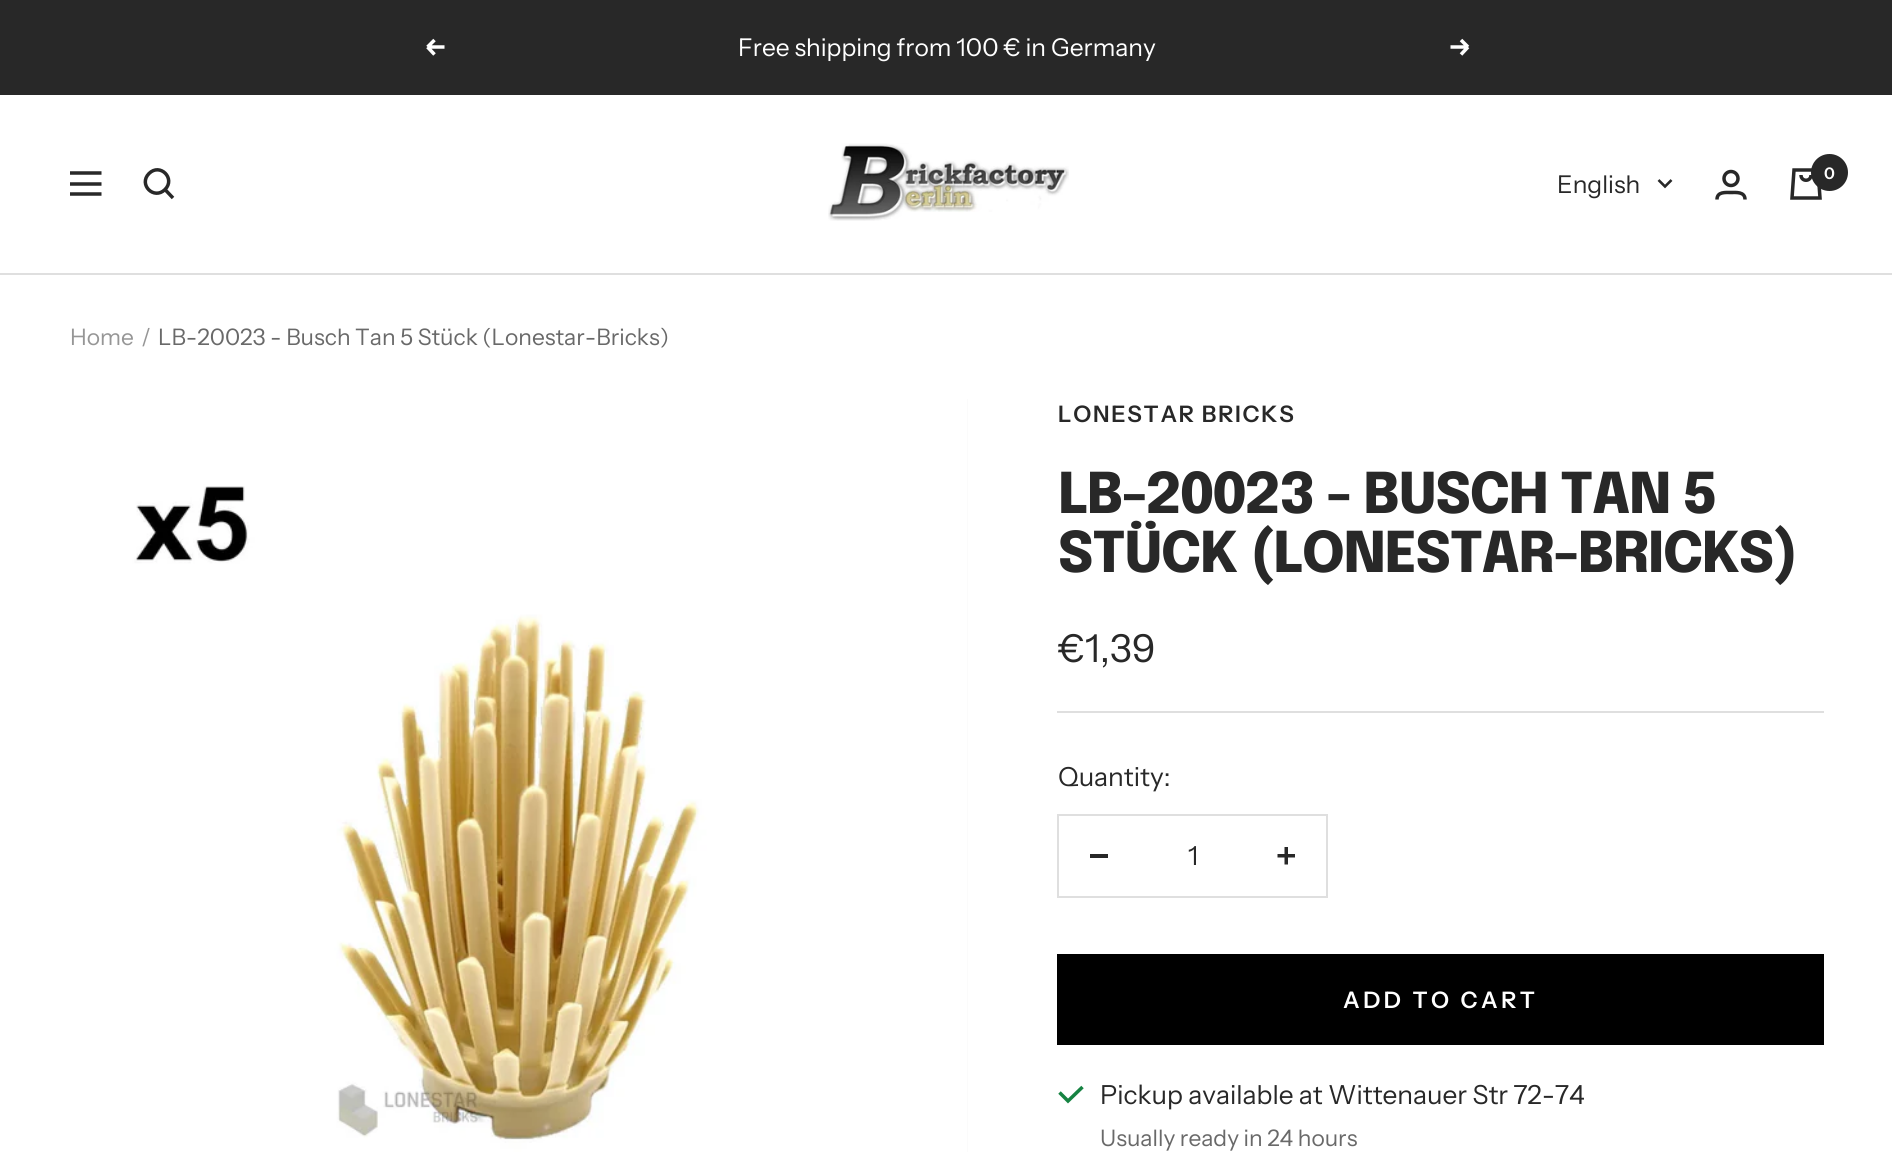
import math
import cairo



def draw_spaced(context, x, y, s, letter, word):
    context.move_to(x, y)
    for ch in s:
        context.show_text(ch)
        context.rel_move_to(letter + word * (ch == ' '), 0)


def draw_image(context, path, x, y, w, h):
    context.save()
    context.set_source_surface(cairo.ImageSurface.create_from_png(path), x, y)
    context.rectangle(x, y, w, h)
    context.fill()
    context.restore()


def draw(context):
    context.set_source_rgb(1, 1, 1)
    context.paint()
    context.set_source_rgb(40 / 255, 40 / 255, 40 / 255)
    context.rectangle(0, 0, 1892, 95)
    context.fill()
    context.new_path()
    context.move_to(444.5, 47)
    context.line_to(427.5, 47)
    context.move_to(427.5, 47)
    context.line_to(434.5, 54.5)
    context.move_to(427.5, 47)
    context.line_to(434.5, 40)
    context.set_source_rgb(1, 1, 1)
    context.set_line_width(3.5)
    context.stroke()
    context.new_path()
    context.move_to(1450.5, 47)
    context.line_to(1468, 47)
    context.move_to(1468, 47)
    context.line_to(1461, 54.5)
    context.move_to(1468, 47)
    context.line_to(1461, 40)
    context.stroke()
    context.set_source_rgb(223 / 255, 223 / 255, 223 / 255)
    context.new_path()
    context.move_to(0, 273)
    context.line_to(0, 275)
    context.line_to(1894, 275)
    context.line_to(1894, 96)
    context.line_to(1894, 273)
    context.close_path()
    context.fill()
    context.new_path()
    context.move_to(70, 173)
    context.line_to(101.5, 173)
    context.move_to(70, 194)
    context.line_to(101.5, 194)
    context.close_path()
    context.move_to(70, 184)
    context.line_to(101.5, 184)
    context.close_path()
    context.set_source_rgb(40 / 255, 40 / 255, 40 / 255)
    context.stroke()
    context.new_path()
    context.move_to(165, 189.5)
    context.curve_to(176, 178.5, 160, 162.5, 149, 173.5)
    context.curve_to(138, 184.5, 154, 200.5, 165, 189.5)
    context.close_path()
    context.move_to(165, 189.5)
    context.line_to(173, 198)
    context.stroke()
    draw_image(context, "images/1.png", 828, 143, 241, 78)
    context.arc(1731, 178.5, 7, 0, 2 * math.pi)
    context.stroke()
    context.new_path()
    context.move_to(1717, 199.5)
    context.curve_to(1717, 191.5, 1725.5, 192.5, 1731, 192.5)
    context.curve_to(1736, 192.5, 1745, 191.5, 1745, 199.5)
    context.stroke()
    context.new_path()
    context.move_to(1794, 170)
    context.line_to(1818, 170)
    context.line_to(1820, 198)
    context.line_to(1792, 198)
    context.close_path()
    context.move_to(1801, 175)
    context.curve_to(1801, 182, 1811, 182, 1811, 175)
    context.stroke()
    context.arc(1829.5, 172.5, 18.5, 0, 2 * math.pi)
    context.fill()
    context.new_path()
    context.move_to(1658.5, 180)
    context.line_to(1665, 186.5)
    context.line_to(1671.5, 180)
    context.set_line_width(2.6)
    context.stroke()
    context.set_source_rgb(245 / 255, 245 / 255, 245 / 255)
    context.rectangle(967, 399, 1, 753)
    context.fill()
    draw_image(context, "images/2.png", 70, 399, 898, 753)
    context.set_source_rgb(223 / 255, 223 / 255, 223 / 255)
    context.rectangle(1057, 711, 767, 2)
    context.fill()
    context.rectangle(1058, 815, 269, 82)
    context.set_line_width(2)
    context.stroke()
    context.set_source_rgb(40 / 255, 40 / 255, 40 / 255)
    context.rectangle(1090, 854, 18, 4)
    context.fill()
    draw_image(context, "images/3.png", 1277, 847, 18, 18)
    context.set_source_rgb(0, 0, 0)
    context.rectangle(1057, 954, 767, 91)
    context.fill()
    context.new_path()
    context.move_to(1059.5, 1092.5)
    context.line_to(1068, 1101)
    context.line_to(1082.5, 1087)
    context.set_source_rgb(22 / 255, 131 / 255, 66 / 255)
    context.set_line_width(3.5)
    context.stroke()
    context.select_font_face("Instrument Sans")
    context.set_font_size(24.5)
    context.set_source_rgb(1, 1, 1)
    context.move_to(738, 56)
    context.show_text("Free shipping from 100 € in Germany")
    context.select_font_face("Instrument Sans SemiBold")
    context.set_font_size(16)
    context.move_to(1824, 179)
    context.show_text("0")
    context.select_font_face("Instrument Sans")
    context.set_font_size(24.5)
    context.set_source_rgb(40 / 255, 40 / 255, 40 / 255)
    context.move_to(1557, 193)
    context.show_text("English")
    context.set_font_size(22.75)
    context.set_source_rgb(150 / 255, 150 / 255, 150 / 255)
    context.move_to(70, 345)
    context.show_text("Home")
    context.move_to(141, 345)
    context.show_text("/")
    context.set_source_rgb(105 / 255, 105 / 255, 105 / 255)
    context.move_to(158, 345)
    context.show_text("LB-20023 - Busch Tan 5 Stück (Lonestar-Bricks)")
    context.select_font_face("Instrument Sans SemiBold")
    context.set_source_rgb(40 / 255, 40 / 255, 40 / 255)
    draw_spaced(context, 1058, 422, "LONESTAR BRICKS", 1.75, 0)
    context.select_font_face("Epilogue ExtraBold")
    context.set_font_size(56)
    draw_spaced(context, 1058, 513, "LB-20023 - BUSCH TAN 5", -1.4, 0)
    draw_spaced(context, 1058, 572, "STÜCK (LONESTAR-BRICKS)", -1.4, 0)
    context.select_font_face("Instrument Sans")
    context.set_font_size(38.5)
    context.move_to(1058, 662)
    context.show_text("€1,39")
    context.set_font_size(26.25)
    context.move_to(1058, 786)
    context.show_text("Quantity:")
    context.move_to(1188, 865)
    context.show_text("1")
    context.select_font_face("Instrument Sans SemiBold")
    context.set_font_size(22.75)
    context.set_source_rgb(1, 1, 1)
    draw_spaced(context, 1343, 1008, "ADD TO CART", 3.5, 0)
    context.select_font_face("Instrument Sans")
    context.set_font_size(26.25)
    context.set_source_rgb(40 / 255, 40 / 255, 40 / 255)
    context.move_to(1100, 1104)
    context.show_text("Pickup available at Wittenauer Str 72-74")
    context.set_font_size(22.75)
    context.set_source_rgb(105 / 255, 105 / 255, 105 / 255)
    context.move_to(1100, 1146)
    context.show_text("Usually ready in 24 hours")


surface = cairo.ImageSurface(cairo.Format.RGB24, 1892, 1152)
context = cairo.Context(surface)
options = cairo.FontOptions()
options.set_hint_metrics(cairo.HintMetrics.OFF)
options.set_hint_style(cairo.HintStyle.NONE)
context.set_font_options(options)
context.set_miter_limit(4)
draw(context)
surface.write_to_png("out.png")
